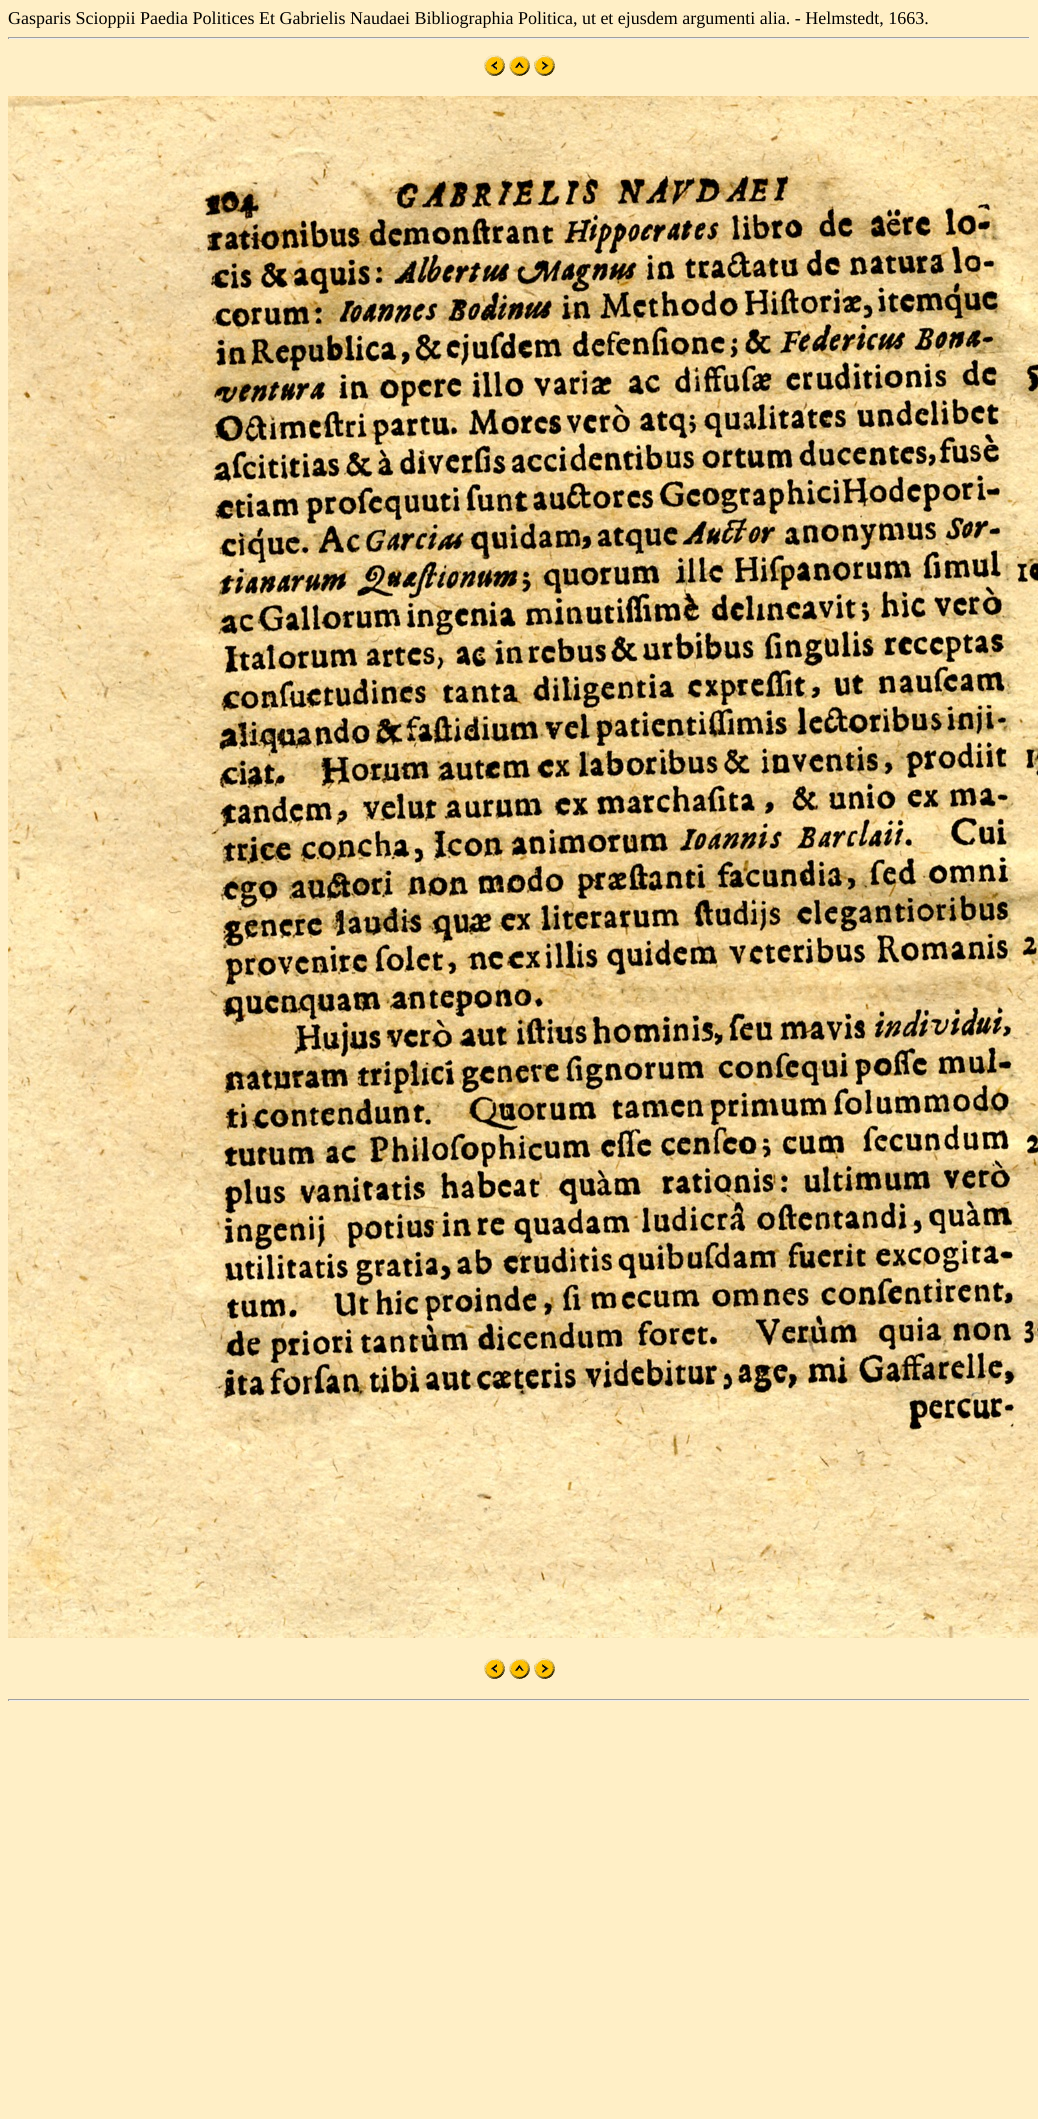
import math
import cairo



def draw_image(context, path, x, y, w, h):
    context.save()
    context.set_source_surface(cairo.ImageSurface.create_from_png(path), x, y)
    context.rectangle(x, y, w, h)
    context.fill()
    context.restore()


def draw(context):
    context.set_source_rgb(1, 239 / 255, 198 / 255)
    context.paint()
    context.set_source_rgb(159 / 255, 159 / 255, 159 / 255)
    context.rectangle(8, 37, 1022, 1)
    context.fill()
    context.set_source_rgb(238 / 255, 238 / 255, 238 / 255)
    context.rectangle(1029, 37, 1, 2)
    context.fill()
    context.rectangle(8, 38, 1022, 1)
    context.fill()
    context.set_source_rgb(159 / 255, 159 / 255, 159 / 255)
    context.rectangle(8, 37, 1, 2)
    context.fill()
    draw_image(context, "images/1.png", 484, 55, 21, 21)
    draw_image(context, "images/2.png", 509, 55, 21, 21)
    draw_image(context, "images/3.png", 534, 55, 21, 21)
    draw_image(context, "images/4.png", 8, 96, 1030, 1542)
    draw_image(context, "images/1.png", 484, 1658, 21, 21)
    draw_image(context, "images/2.png", 509, 1658, 21, 21)
    draw_image(context, "images/3.png", 534, 1658, 21, 21)
    context.rectangle(8, 1699, 1022, 1)
    context.fill()
    context.set_source_rgb(238 / 255, 238 / 255, 238 / 255)
    context.rectangle(1029, 1699, 1, 2)
    context.fill()
    context.rectangle(8, 1700, 1022, 1)
    context.fill()
    context.set_source_rgb(159 / 255, 159 / 255, 159 / 255)
    context.rectangle(8, 1699, 1, 2)
    context.fill()
    context.select_font_face("Liberation Serif")
    context.set_font_size(18)
    context.set_source_rgb(0, 0, 0)
    context.move_to(8, 24)
    context.show_text("Gasparis Scioppii Paedia Politices Et Gabrielis Naudaei Bibliographia Politica, ut et ejusdem argumenti alia. - Helmstedt, 1663.")


surface = cairo.ImageSurface(cairo.Format.RGB24, 1038, 2119)
context = cairo.Context(surface)
options = cairo.FontOptions()
options.set_hint_metrics(cairo.HintMetrics.OFF)
options.set_hint_style(cairo.HintStyle.NONE)
context.set_font_options(options)
context.set_miter_limit(4)
draw(context)
surface.write_to_png("out.png")
